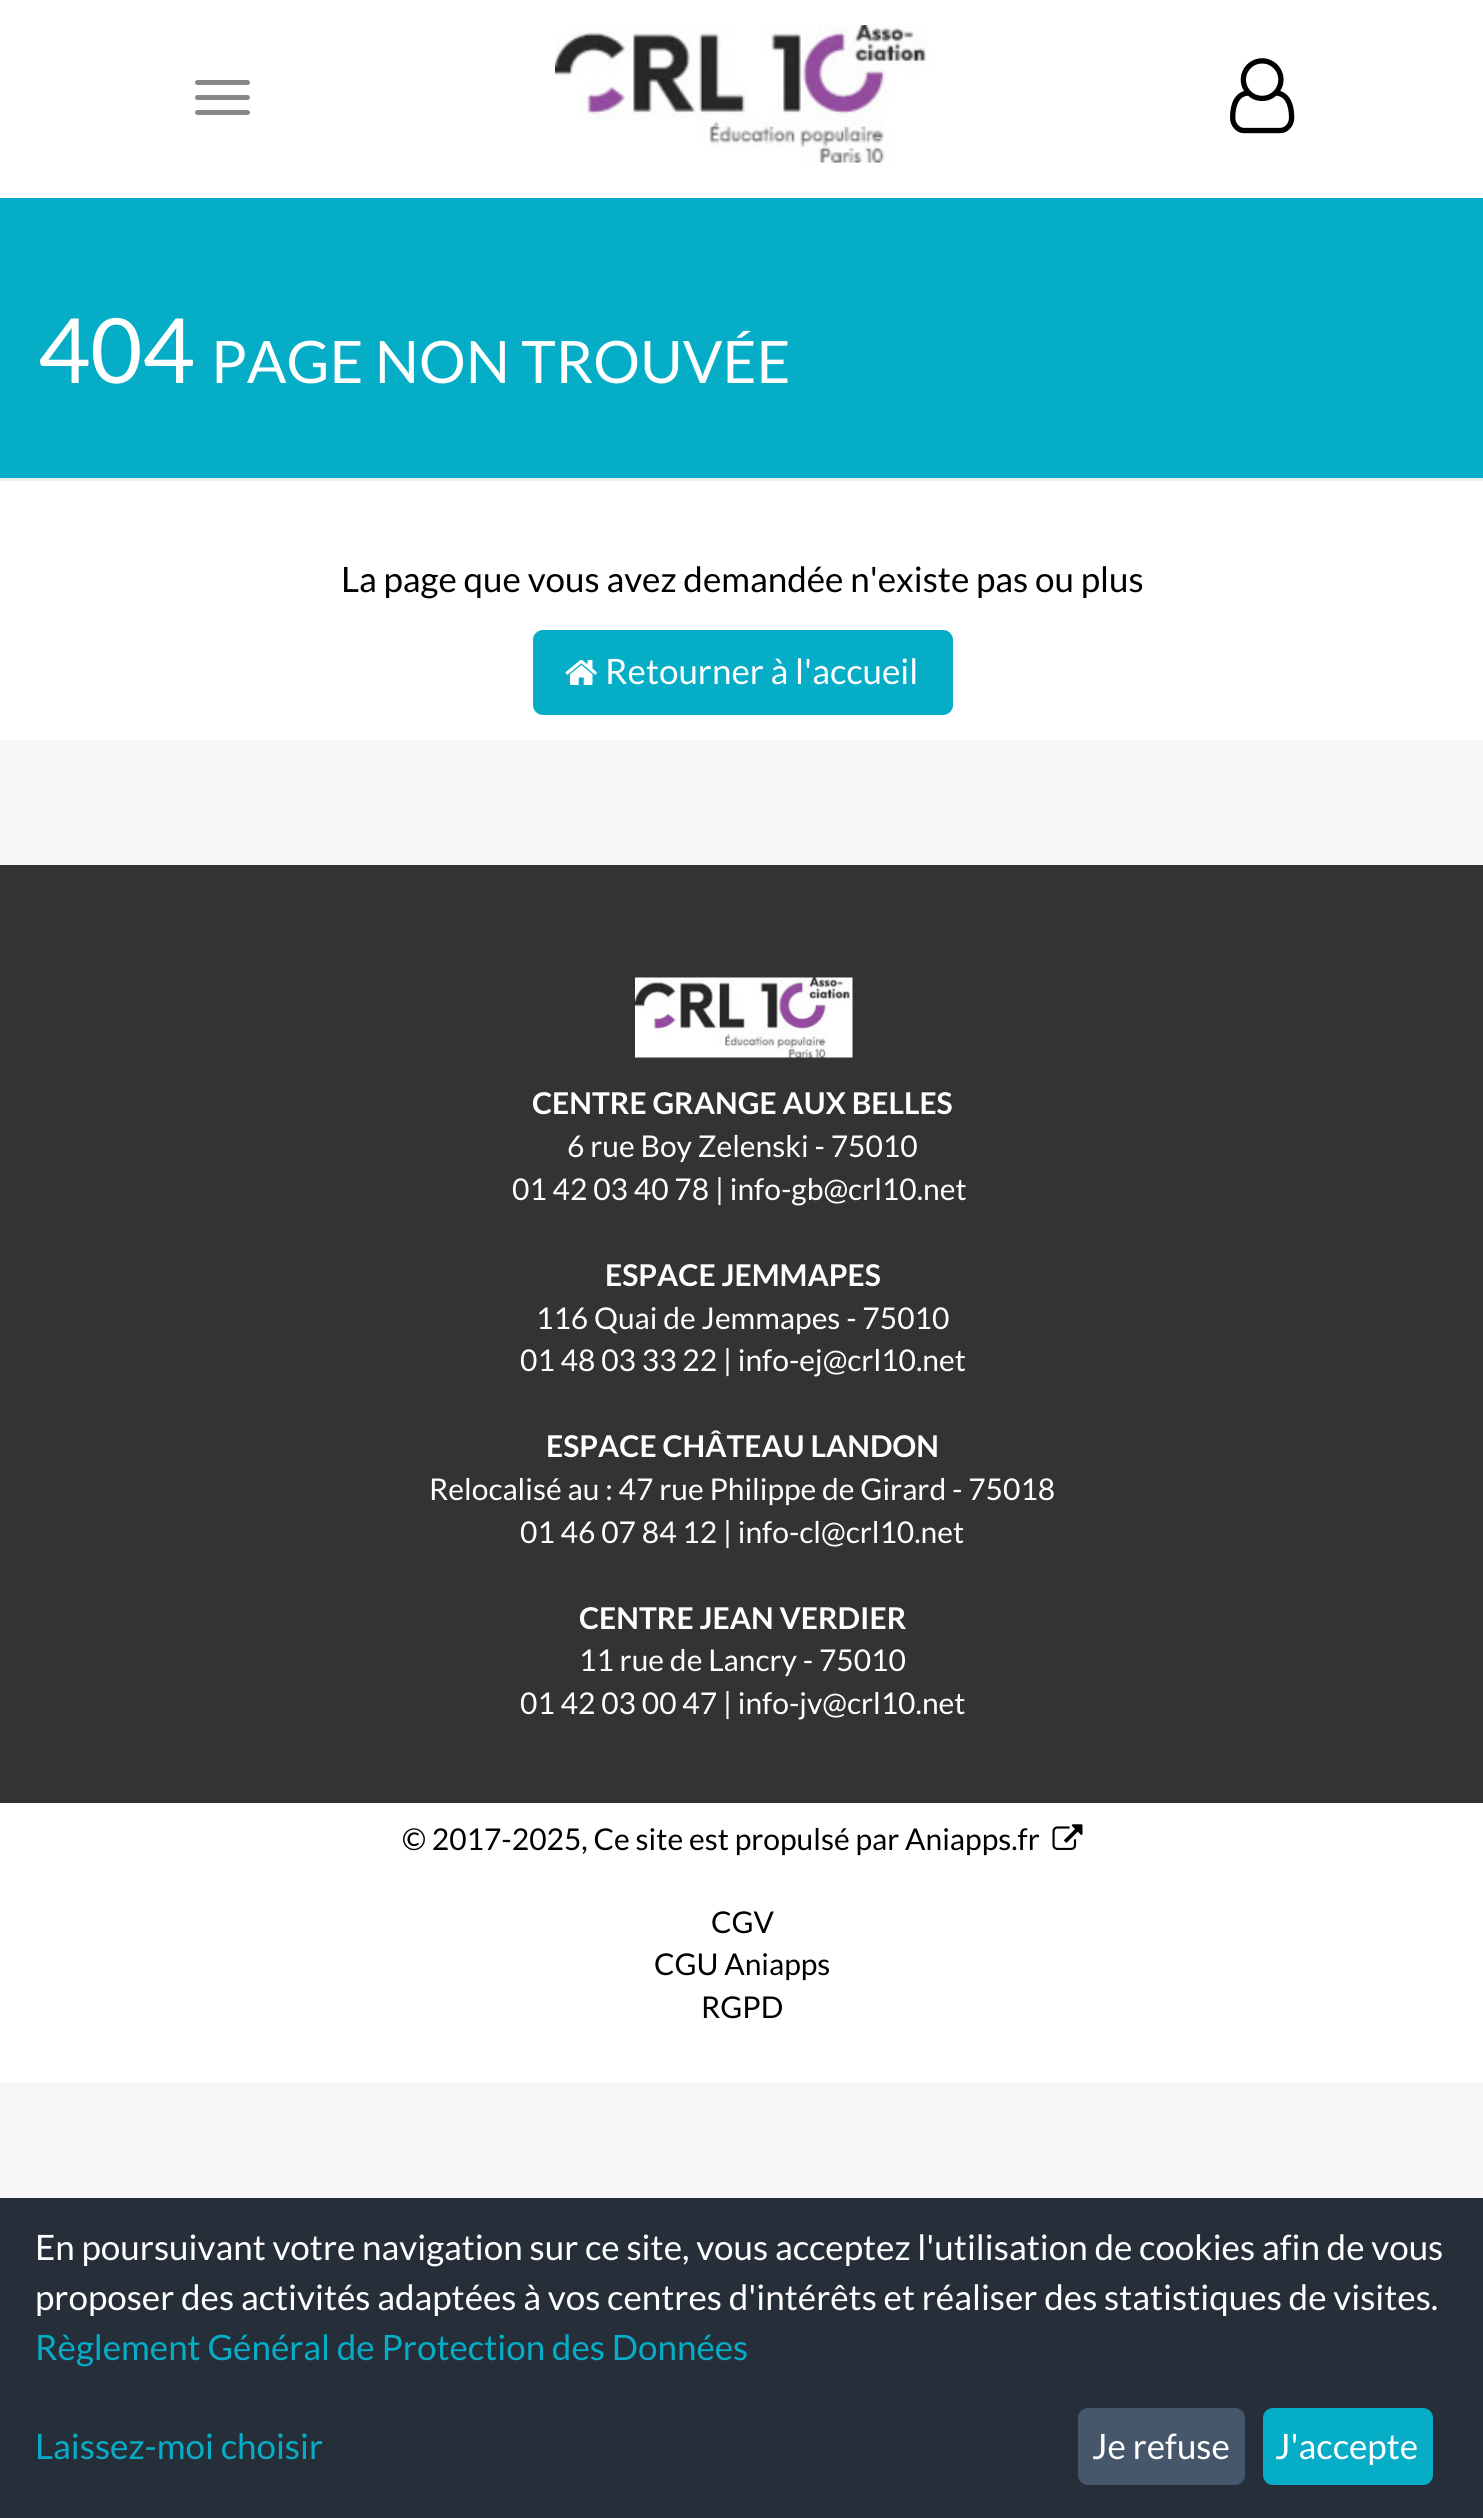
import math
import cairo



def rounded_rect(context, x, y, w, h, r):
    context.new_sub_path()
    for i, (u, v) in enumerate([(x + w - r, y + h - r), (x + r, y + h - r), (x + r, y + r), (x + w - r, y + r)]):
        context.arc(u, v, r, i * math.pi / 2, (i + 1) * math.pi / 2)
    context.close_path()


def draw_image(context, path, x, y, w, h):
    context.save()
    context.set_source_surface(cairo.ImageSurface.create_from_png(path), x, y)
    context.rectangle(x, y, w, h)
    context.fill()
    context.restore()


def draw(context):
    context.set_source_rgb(247 / 255, 247 / 255, 247 / 255)
    context.paint()
    context.set_source_rgb(1, 1, 1)
    context.rectangle(0, 0, 1483, 198)
    context.fill()
    context.set_source_rgb(136 / 255, 136 / 255, 136 / 255)
    rounded_rect(context, 195, 80, 55, 5, 2.5)
    context.fill()
    rounded_rect(context, 195, 95, 55, 5, 2.5)
    context.fill()
    rounded_rect(context, 195, 110, 55, 5, 2.5)
    context.fill()
    draw_image(context, "images/1.png", 555, 25, 375, 138)
    draw_image(context, "images/2.png", 1230, 58, 65, 76)
    context.set_source_rgb(1, 1, 1)
    context.rectangle(0, 481, 1483, 259)
    context.fill()
    context.set_source_rgb(5 / 255, 173 / 255, 199 / 255)
    context.rectangle(0, 198, 1483, 280)
    context.fill()
    context.set_source_rgb(238 / 255, 238 / 255, 238 / 255)
    context.rectangle(0, 478, 1483, 3)
    context.fill()
    context.set_source_rgb(5 / 255, 173 / 255, 199 / 255)
    rounded_rect(context, 533, 630, 420, 85, 10)
    context.fill()
    draw_image(context, "images/3.png", 565, 659, 32, 26)
    context.set_source_rgb(1, 1, 1)
    context.rectangle(0, 1803, 1483, 280)
    context.fill()
    context.set_source_rgb(51 / 255, 51 / 255, 51 / 255)
    context.rectangle(0, 865, 1483, 938)
    context.fill()
    draw_image(context, "images/4.png", 635, 977, 218, 81)
    draw_image(context, "images/5.png", 1052, 1824, 31, 26)
    context.set_source_rgb(37 / 255, 46 / 255, 57 / 255)
    context.rectangle(0, 2198, 1483, 320)
    context.fill()
    context.set_source_rgb(70 / 255, 87 / 255, 107 / 255)
    rounded_rect(context, 1078, 2408, 167, 77, 10)
    context.fill()
    context.set_source_rgb(5 / 255, 173 / 255, 199 / 255)
    rounded_rect(context, 1263, 2408, 170, 77, 10)
    context.fill()
    context.select_font_face("Lato")
    context.set_font_size(90)
    context.set_source_rgb(1, 1, 1)
    context.move_to(38, 383)
    context.show_text("404")
    context.set_font_size(58.5)
    context.move_to(211, 383)
    context.show_text("PAGE NON TROUVÉE")
    context.set_font_size(35)
    context.set_source_rgb(0, 0, 0)
    context.move_to(341, 592)
    context.show_text("La page que vous avez demandée n'existe pas ou plus")
    context.set_source_rgb(1, 1, 1)
    context.move_to(605, 684)
    context.show_text("Retourner à l'accueil")
    context.select_font_face("Lato", cairo.FontSlant.NORMAL, cairo.FontWeight.BOLD)
    context.set_font_size(30)
    context.move_to(532, 1114)
    context.show_text("CENTRE GRANGE AUX BELLES")
    context.select_font_face("Lato")
    context.move_to(567, 1157)
    context.show_text("6 rue Boy Zelenski - 75010")
    context.move_to(512, 1200)
    context.show_text("01 42 03 40 78 | info-gb@crl10.net")
    context.select_font_face("Lato", cairo.FontSlant.NORMAL, cairo.FontWeight.BOLD)
    context.move_to(605, 1286)
    context.show_text("ESPACE JEMMAPES")
    context.select_font_face("Lato")
    context.move_to(536, 1329)
    context.show_text("116 Quai de Jemmapes - 75010")
    context.move_to(520, 1371)
    context.show_text("01 48 03 33 22 | info-ej@crl10.net")
    context.select_font_face("Lato", cairo.FontSlant.NORMAL, cairo.FontWeight.BOLD)
    context.move_to(546, 1457)
    context.show_text("ESPACE CHÂTEAU LANDON")
    context.select_font_face("Lato")
    context.move_to(429, 1500)
    context.show_text("Relocalisé au : 47 rue Philippe de Girard - 75018")
    context.move_to(520, 1543)
    context.show_text("01 46 07 84 12 | info-cl@crl10.net")
    context.select_font_face("Lato", cairo.FontSlant.NORMAL, cairo.FontWeight.BOLD)
    context.move_to(579, 1629)
    context.show_text("CENTRE JEAN VERDIER")
    context.select_font_face("Lato")
    context.move_to(579, 1671)
    context.show_text("11 rue de Lancry - 75010")
    context.move_to(520, 1714)
    context.show_text("01 42 03 00 47 | info-jv@crl10.net")
    context.set_source_rgb(0, 0, 0)
    context.move_to(402, 1850)
    context.show_text("© 2017-2025, Ce site est propulsé par Aniapps.fr")
    context.move_to(711, 1933)
    context.show_text("CGV")
    context.move_to(654, 1975)
    context.show_text("CGU Aniapps")
    context.move_to(701, 2018)
    context.show_text("RGPD")
    context.set_font_size(35)
    context.set_source_rgb(1, 1, 1)
    context.move_to(35, 2260)
    context.show_text("En poursuivant votre navigation sur ce site, vous acceptez l'utilisation de cookies afin de vous")
    context.move_to(35, 2310)
    context.show_text("proposer des activités adaptées à vos centres d'intérêts et réaliser des statistiques de visites.")
    context.set_source_rgb(5 / 255, 173 / 255, 199 / 255)
    context.move_to(35, 2360)
    context.show_text("Règlement Général de Protection des Données")
    context.move_to(35, 2459)
    context.show_text("Laissez-moi choisir")
    context.set_source_rgb(1, 1, 1)
    context.move_to(1092, 2459)
    context.show_text("Je refuse")
    context.move_to(1275, 2459)
    context.show_text("J'accepte")


surface = cairo.ImageSurface(cairo.Format.RGB24, 1483, 2518)
context = cairo.Context(surface)
options = cairo.FontOptions()
options.set_hint_metrics(cairo.HintMetrics.OFF)
options.set_hint_style(cairo.HintStyle.NONE)
context.set_font_options(options)
context.set_miter_limit(4)
draw(context)
surface.write_to_png("out.png")
